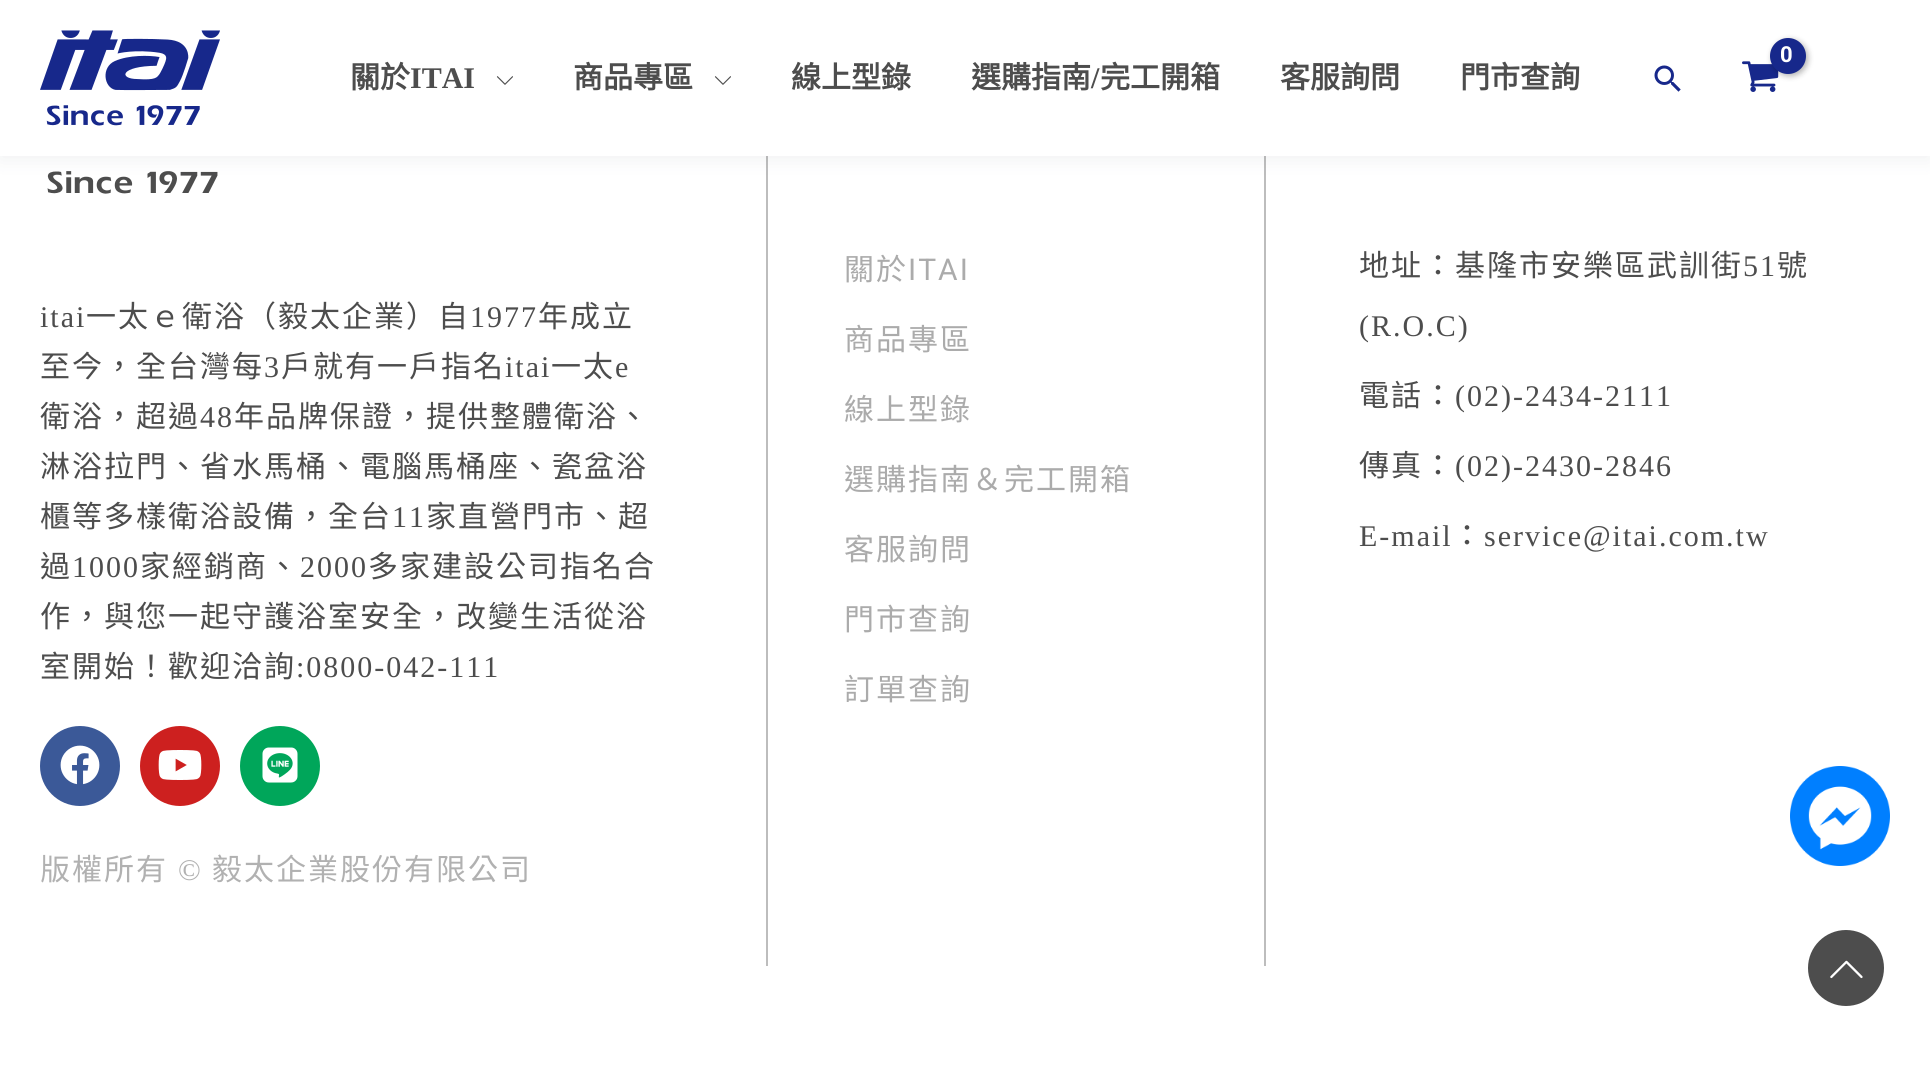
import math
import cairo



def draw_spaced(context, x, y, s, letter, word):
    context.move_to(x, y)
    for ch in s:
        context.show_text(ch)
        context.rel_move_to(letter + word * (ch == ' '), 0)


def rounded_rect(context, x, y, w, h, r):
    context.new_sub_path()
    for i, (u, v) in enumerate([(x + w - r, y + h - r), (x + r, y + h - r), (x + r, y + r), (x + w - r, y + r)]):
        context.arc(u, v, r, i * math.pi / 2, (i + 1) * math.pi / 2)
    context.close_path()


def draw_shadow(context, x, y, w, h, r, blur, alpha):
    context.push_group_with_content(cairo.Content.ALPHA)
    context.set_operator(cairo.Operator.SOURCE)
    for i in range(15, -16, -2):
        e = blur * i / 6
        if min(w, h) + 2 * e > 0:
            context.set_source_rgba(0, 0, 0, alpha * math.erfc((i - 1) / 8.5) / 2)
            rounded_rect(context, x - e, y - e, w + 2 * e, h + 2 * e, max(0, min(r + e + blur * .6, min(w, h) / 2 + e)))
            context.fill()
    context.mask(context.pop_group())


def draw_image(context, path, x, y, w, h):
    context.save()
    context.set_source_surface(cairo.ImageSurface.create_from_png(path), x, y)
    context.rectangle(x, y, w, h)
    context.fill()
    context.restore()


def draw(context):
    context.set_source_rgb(1, 1, 1)
    context.paint()
    draw_image(context, "images/5.png", 47, 171, 171, 23)
    context.set_source_rgb(189 / 255, 189 / 255, 189 / 255)
    context.rectangle(1264, 156, 2, 810)
    context.fill()
    context.rectangle(766, 156, 2, 810)
    context.fill()
    context.set_source_rgb(36 / 255, 50 / 255, 66 / 255)
    draw_shadow(context, 0, 4, 1930, 156, 0, 10, 0.07)
    context.set_source_rgb(1, 1, 1)
    context.rectangle(0, 0, 1930, 156)
    context.fill()
    draw_image(context, "images/1.png", 40, 30, 180, 96)
    draw_image(context, "images/2.png", 1742, 61, 37, 31)
    context.set_source_rgb(0, 0, 0)
    draw_shadow(context, 1772, 40, 36, 36, 18, 3, 0.3)
    context.set_source_rgb(23 / 255, 40 / 255, 139 / 255)
    context.arc(1788, 56, 18, 0, 2 * math.pi)
    context.fill()
    draw_image(context, "images/3.png", 1654, 65, 27, 27)
    draw_image(context, "images/4.png", 496, 76, 17, 9)
    draw_image(context, "images/4.png", 714, 76, 17, 9)
    context.set_source_rgb(59 / 255, 89 / 255, 152 / 255)
    context.arc(80, 766, 40, 0, 2 * math.pi)
    context.fill()
    draw_image(context, "images/6.png", 60, 745, 40, 40)
    context.set_source_rgb(205 / 255, 32 / 255, 31 / 255)
    context.arc(180, 766, 40, 0, 2 * math.pi)
    context.fill()
    draw_image(context, "images/7.png", 158, 750, 44, 30)
    context.set_source_rgb(0, 166 / 255, 90 / 255)
    context.arc(280, 766, 40, 0, 2 * math.pi)
    context.fill()
    draw_image(context, "images/8.png", 262, 747, 36, 36)
    draw_image(context, "images/9.png", 1790, 766, 100, 100)
    context.set_source_rgb(77 / 255, 77 / 255, 77 / 255)
    context.new_path()
    context.move_to(1846, 1006)
    context.curve_to(1825, 1006, 1808, 989, 1808, 968)
    context.curve_to(1808, 947, 1825, 930, 1846, 930)
    context.curve_to(1867, 930, 1884, 947, 1884, 968)
    context.curve_to(1884, 989, 1867, 1006, 1846, 1006)
    context.close_path()
    context.fill()
    draw_image(context, "images/10.png", 1830, 960, 33, 19)
    context.select_font_face("Roboto", cairo.FontSlant.NORMAL, cairo.FontWeight.BOLD)
    context.set_font_size(22)
    context.set_source_rgb(1, 1, 1)
    draw_spaced(context, 1780, 62, "0", -1, 0)
    context.select_font_face("Noto Sans CJK TC", cairo.FontSlant.NORMAL, cairo.FontWeight.BOLD)
    context.set_font_size(30)
    context.set_source_rgb(77 / 255, 77 / 255, 77 / 255)
    context.move_to(350, 88)
    context.show_text("關於")
    context.select_font_face("Liberation Serif", cairo.FontSlant.NORMAL, cairo.FontWeight.BOLD)
    context.move_to(410, 88)
    context.show_text("ITAI")
    context.select_font_face("Noto Sans CJK TC", cairo.FontSlant.NORMAL, cairo.FontWeight.BOLD)
    context.move_to(573, 88)
    context.show_text("商品專區")
    context.move_to(791, 88)
    context.show_text("線上型錄")
    context.move_to(971, 88)
    context.show_text("選購指南")
    context.select_font_face("Liberation Serif", cairo.FontSlant.NORMAL, cairo.FontWeight.BOLD)
    context.move_to(1091, 88)
    context.show_text("/")
    context.select_font_face("Noto Sans CJK TC", cairo.FontSlant.NORMAL, cairo.FontWeight.BOLD)
    context.move_to(1100, 88)
    context.show_text("完工開箱")
    context.move_to(1280, 88)
    context.show_text("客服詢問")
    context.move_to(1460, 88)
    context.show_text("門市查詢")
    context.select_font_face("Liberation Serif")
    draw_spaced(context, 40, 327, "itai", 2, 0)
    context.select_font_face("Noto Sans CJK TC")
    draw_spaced(context, 86, 327, "一太ｅ衛浴（毅太企業）自", 2, 0)
    context.select_font_face("Liberation Serif")
    draw_spaced(context, 470, 327, "1977", 2, 0)
    context.select_font_face("Noto Sans CJK TC")
    draw_spaced(context, 538, 327, "年成立", 2, 0)
    draw_spaced(context, 40, 377, "至今，全台灣每", 2, 0)
    context.select_font_face("Liberation Serif")
    draw_spaced(context, 264, 377, "3", 2, 0)
    context.select_font_face("Noto Sans CJK TC")
    draw_spaced(context, 281, 377, "戶就有一戶指名", 2, 0)
    context.select_font_face("Liberation Serif")
    draw_spaced(context, 505, 377, "itai", 2, 0)
    context.select_font_face("Noto Sans CJK TC")
    draw_spaced(context, 551, 377, "一太", 2, 0)
    context.select_font_face("Liberation Serif")
    draw_spaced(context, 615, 377, "e", 2, 0)
    context.select_font_face("Noto Sans CJK TC")
    draw_spaced(context, 40, 427, "衛浴，超過", 2, 0)
    context.select_font_face("Liberation Serif")
    draw_spaced(context, 200, 427, "48", 2, 0)
    context.select_font_face("Noto Sans CJK TC")
    draw_spaced(context, 234, 427, "年品牌保證，提供整體衛浴、", 2, 0)
    draw_spaced(context, 40, 477, "淋浴拉門、省水馬桶、電腦馬桶座、瓷盆浴", 2, 0)
    draw_spaced(context, 40, 527, "櫃等多樣衛浴設備，全台", 2, 0)
    context.select_font_face("Liberation Serif")
    draw_spaced(context, 392, 527, "11", 2, 0)
    context.select_font_face("Noto Sans CJK TC")
    draw_spaced(context, 426, 527, "家直營門市、超", 2, 0)
    draw_spaced(context, 40, 577, "過", 2, 0)
    context.select_font_face("Liberation Serif")
    draw_spaced(context, 72, 577, "1000", 2, 0)
    context.select_font_face("Noto Sans CJK TC")
    draw_spaced(context, 140, 577, "家經銷商、", 2, 0)
    context.select_font_face("Liberation Serif")
    draw_spaced(context, 300, 577, "2000", 2, 0)
    context.select_font_face("Noto Sans CJK TC")
    draw_spaced(context, 368, 577, "多家建設公司指名合", 2, 0)
    draw_spaced(context, 40, 627, "作，與您一起守護浴室安全，改變生活從浴", 2, 0)
    draw_spaced(context, 40, 677, "室開始！歡迎洽詢", 2, 0)
    context.select_font_face("Liberation Serif")
    draw_spaced(context, 296, 677, ":0800-042-111", 2, 0)
    context.select_font_face("Noto Sans CJK TC")
    context.set_source_rgb(177 / 255, 177 / 255, 177 / 255)
    draw_spaced(context, 40, 880, "版權所有", 2, 0)
    context.select_font_face("Liberation Serif")
    draw_spaced(context, 178, 880, "©", 2, 0)
    context.select_font_face("Noto Sans CJK TC")
    draw_spaced(context, 212, 880, "毅太企業股份有限公司", 2, 0)
    context.set_source_rgb(171 / 255, 171 / 255, 171 / 255)
    draw_spaced(context, 844, 280, "關於", 2, 0)
    context.select_font_face("Roboto")
    draw_spaced(context, 908, 280, "ITAI", 2, 0)
    context.select_font_face("Noto Sans CJK TC")
    draw_spaced(context, 844, 350, "商品專區", 2, 0)
    draw_spaced(context, 844, 420, "線上型錄", 2, 0)
    draw_spaced(context, 844, 490, "選購指南＆完工開箱", 2, 0)
    draw_spaced(context, 844, 560, "客服詢問", 2, 0)
    draw_spaced(context, 844, 630, "門市查詢", 2, 0)
    draw_spaced(context, 844, 700, "訂單查詢", 2, 0)
    context.set_source_rgb(77 / 255, 77 / 255, 77 / 255)
    draw_spaced(context, 1359, 276, "地址：基隆市安樂區武訓街", 2, 0)
    context.select_font_face("Liberation Serif")
    draw_spaced(context, 1743, 276, "51", 2, 0)
    context.select_font_face("Noto Sans CJK TC")
    draw_spaced(context, 1777, 276, "號", 2, 0)
    context.select_font_face("Liberation Serif")
    draw_spaced(context, 1359, 336, "(R.O.C)", 2, 0)
    context.select_font_face("Noto Sans CJK TC")
    draw_spaced(context, 1359, 406, "電話：", 2, 0)
    context.select_font_face("Liberation Serif")
    draw_spaced(context, 1455, 406, "(02)-2434-2111", 2, 0)
    context.select_font_face("Noto Sans CJK TC")
    draw_spaced(context, 1359, 476, "傳真：", 2, 0)
    context.select_font_face("Liberation Serif")
    draw_spaced(context, 1455, 476, "(02)-2430-2846", 2, 0)
    draw_spaced(context, 1359, 546, "E-mail", 2, 0)
    context.select_font_face("Noto Sans CJK TC")
    draw_spaced(context, 1452, 546, "：", 2, 0)
    context.select_font_face("Liberation Serif")
    draw_spaced(context, 1484, 546, "service@itai.com.tw", 2, 0)


surface = cairo.ImageSurface(cairo.Format.RGB24, 1930, 1065)
context = cairo.Context(surface)
options = cairo.FontOptions()
options.set_hint_metrics(cairo.HintMetrics.OFF)
options.set_hint_style(cairo.HintStyle.NONE)
context.set_font_options(options)
context.set_miter_limit(4)
draw(context)
surface.write_to_png("out.png")
